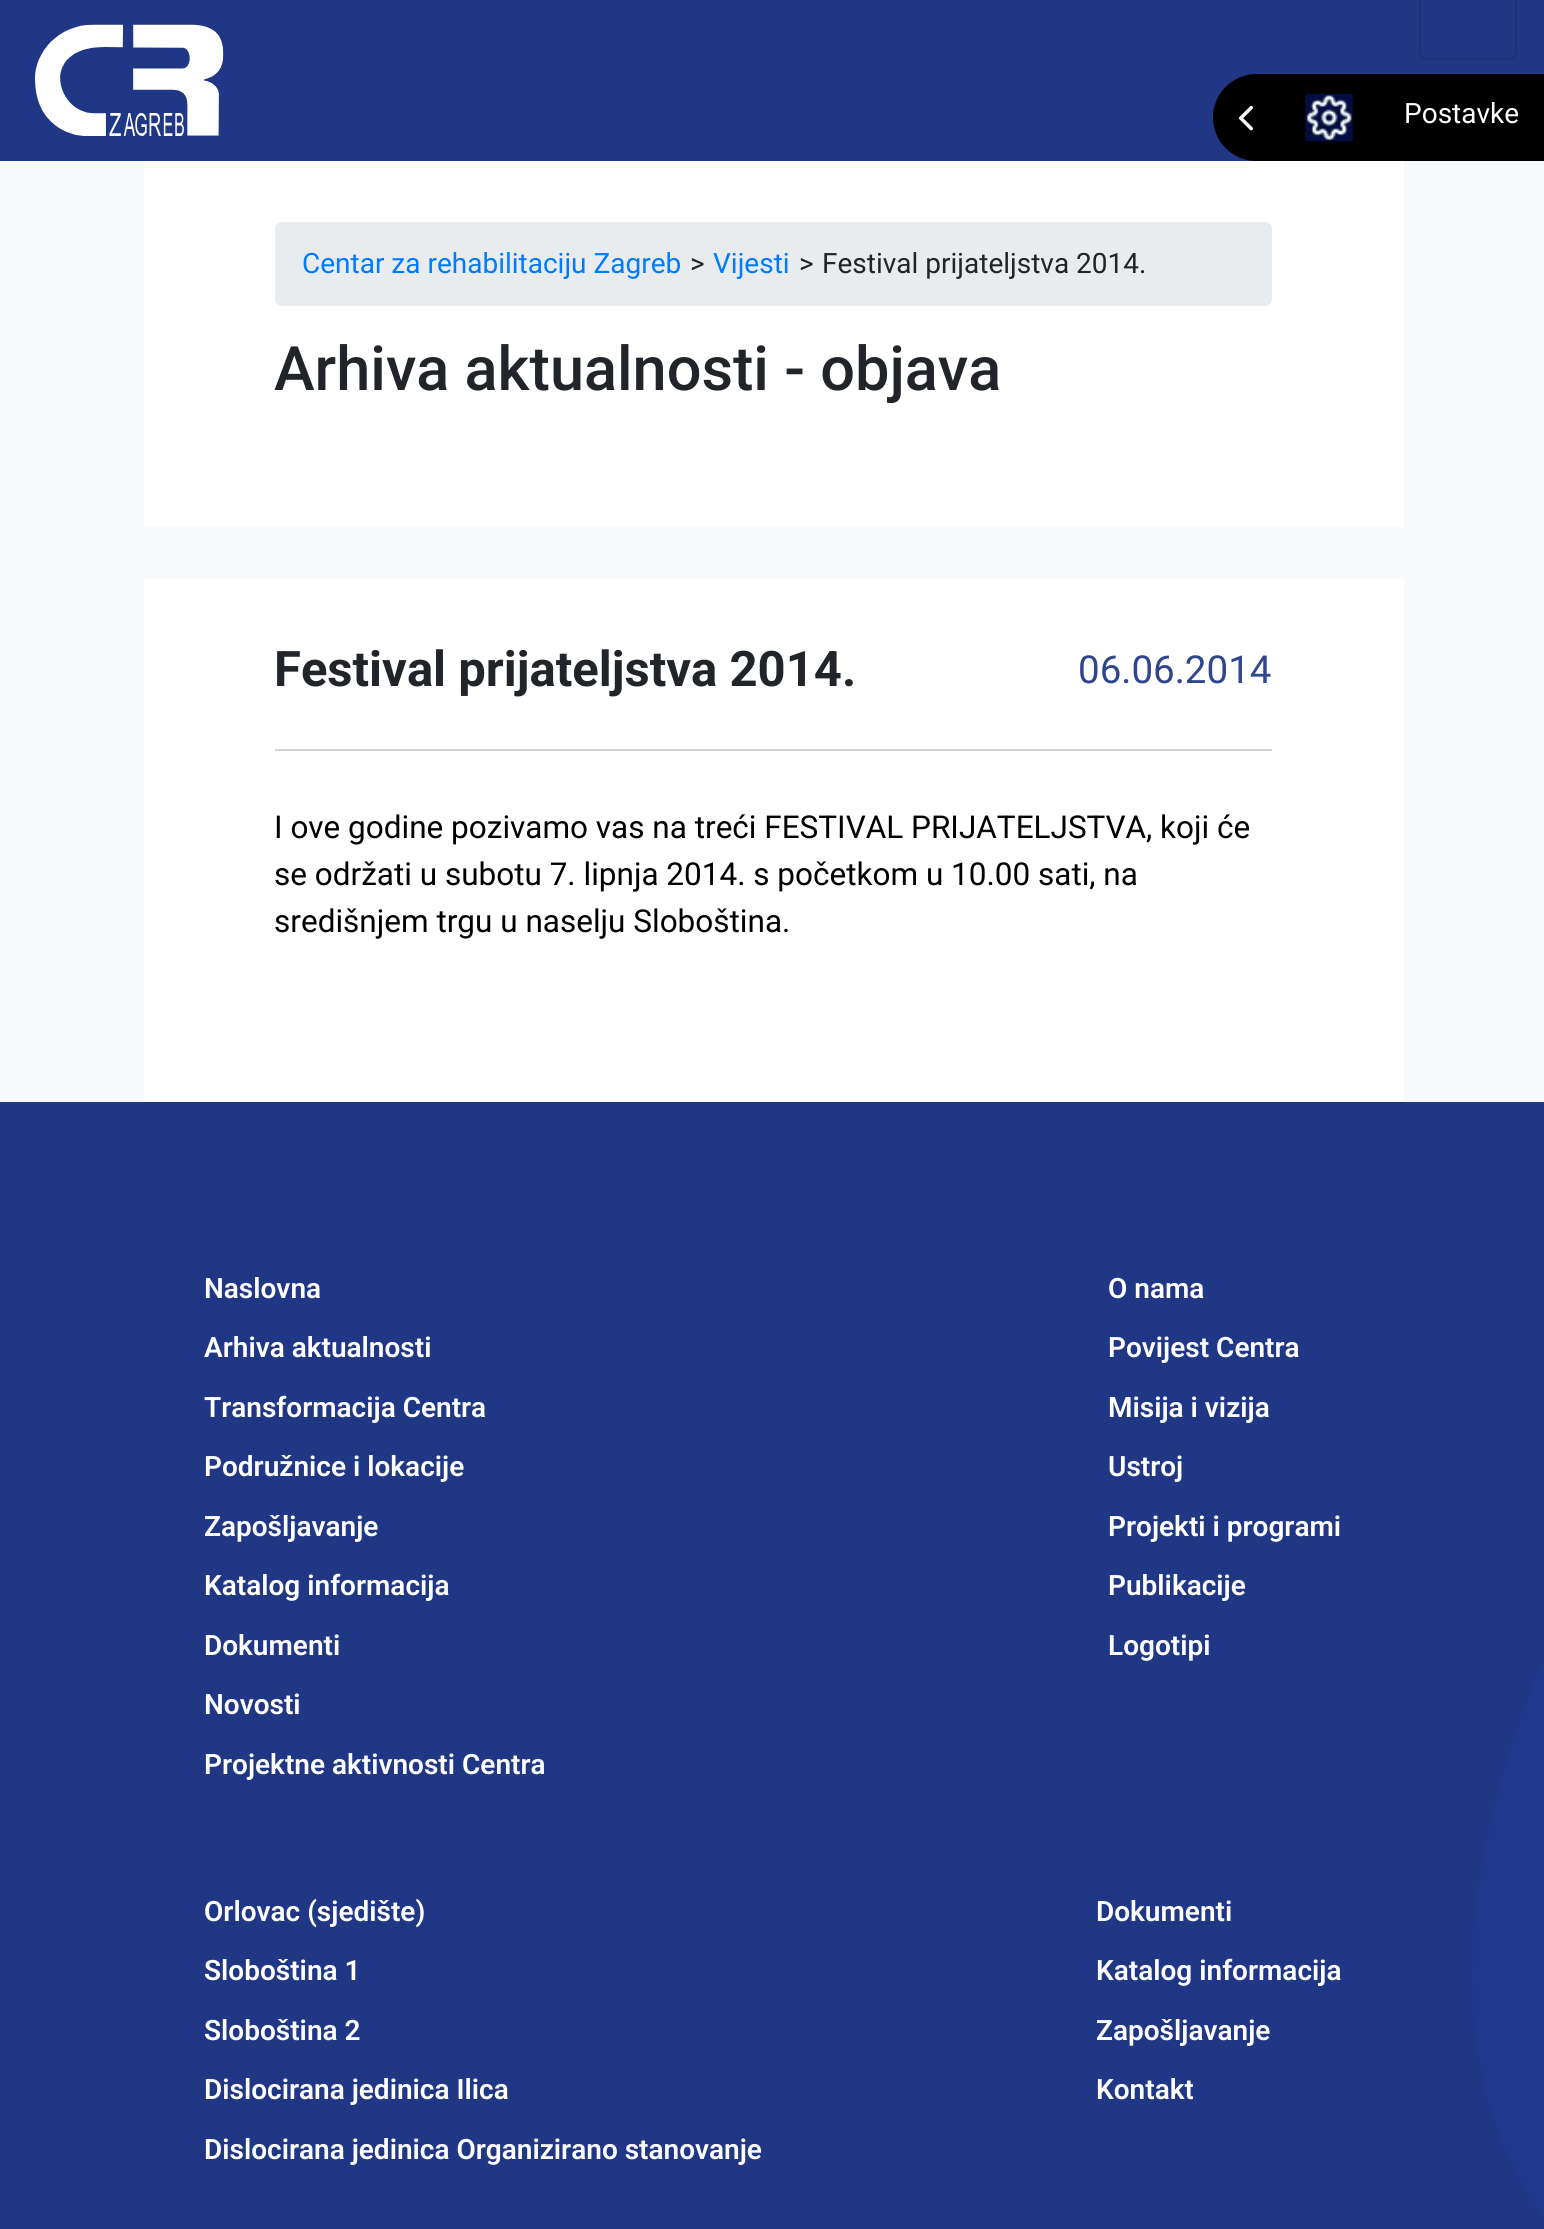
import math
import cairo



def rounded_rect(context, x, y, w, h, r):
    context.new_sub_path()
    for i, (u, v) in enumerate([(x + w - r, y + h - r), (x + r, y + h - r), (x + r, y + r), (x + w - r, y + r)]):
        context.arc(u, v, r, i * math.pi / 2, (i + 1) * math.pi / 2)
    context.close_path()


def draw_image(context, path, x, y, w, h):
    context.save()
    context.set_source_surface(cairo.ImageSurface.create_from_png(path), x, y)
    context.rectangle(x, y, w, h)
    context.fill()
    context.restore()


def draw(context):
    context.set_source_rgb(32 / 255, 55 / 255, 133 / 255)
    context.paint()
    draw_image(context, "images/1.png", 35, 24, 189, 112)
    rounded_rect(context, 1420, -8, 96, 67, 6)
    context.set_source_rgb(29 / 255, 50 / 255, 120 / 255)
    context.stroke()
    context.set_source_rgb(0, 0, 0)
    context.new_path()
    context.move_to(1256.5, 74)
    context.line_to(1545, 74)
    context.line_to(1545, 161)
    context.line_to(1256.5, 161)
    context.curve_to(1232.5, 161, 1213, 141.5, 1213, 117.5)
    context.curve_to(1213, 93.5, 1232.5, 74, 1256.5, 74)
    context.close_path()
    context.fill()
    draw_image(context, "images/2.png", 1239, 105, 14, 26)
    draw_image(context, "images/3.png", 1305, 94, 48, 48)
    context.set_source_rgb(248 / 255, 249 / 255, 250 / 255)
    context.rectangle(0, 161, 1544, 941)
    context.fill()
    context.set_source_rgb(1, 1, 1)
    context.rectangle(144, 161, 1260, 366)
    context.fill()
    context.set_source_rgb(233 / 255, 236 / 255, 239 / 255)
    rounded_rect(context, 275, 222, 997, 84, 7)
    context.fill()
    context.set_source_rgb(1, 1, 1)
    context.rectangle(144, 579, 1260, 523)
    context.fill()
    context.set_source_rgb(211 / 255, 211 / 255, 211 / 255)
    context.rectangle(275, 749, 997, 2)
    context.fill()
    draw_image(context, "images/4.png", 0, 1102, 1544, 1127)
    context.select_font_face("Roboto")
    context.set_font_size(28)
    context.set_source_rgb(1, 1, 1)
    context.move_to(1404, 123)
    context.show_text("Postavke")
    context.set_source_rgb(0, 123 / 255, 1)
    context.move_to(302, 273)
    context.show_text("Centar za rehabilitaciju Zagreb")
    context.set_source_rgb(33 / 255, 37 / 255, 41 / 255)
    context.move_to(690, 273)
    context.show_text(">")
    context.set_source_rgb(0, 123 / 255, 1)
    context.move_to(713, 273)
    context.show_text("Vijesti")
    context.set_source_rgb(33 / 255, 37 / 255, 41 / 255)
    context.move_to(799, 273)
    context.show_text(">")
    context.move_to(822, 273)
    context.show_text("Festival prijateljstva 2014.")
    context.select_font_face("Roboto Medium")
    context.set_font_size(61.25)
    context.move_to(274, 390)
    context.show_text("Arhiva aktualnosti - objava")
    context.select_font_face("Roboto", cairo.FontSlant.NORMAL, cairo.FontWeight.BOLD)
    context.set_font_size(49)
    context.move_to(274, 686)
    context.show_text("Festival prijateljstva 2014.")
    context.select_font_face("Roboto")
    context.set_font_size(38.5)
    context.set_source_rgb(47 / 255, 69 / 255, 142 / 255)
    context.move_to(1078, 683)
    context.show_text("06.06.2014")
    context.set_font_size(31.5)
    context.set_source_rgb(0, 0, 0)
    context.move_to(274, 838)
    context.show_text("I ove godine pozivamo vas na treći FESTIVAL PRIJATELJSTVA, koji će")
    context.move_to(274, 885)
    context.show_text("se održati u subotu 7. lipnja 2014. s početkom u 10.00 sati, na")
    context.move_to(274, 932)
    context.show_text("središnjem trgu u naselju Sloboština.")
    context.select_font_face("Roboto SemiBold")
    context.set_font_size(28)
    context.set_source_rgb(1, 1, 1)
    context.move_to(204, 1298)
    context.show_text("Naslovna")
    context.move_to(204, 1357)
    context.show_text("Arhiva aktualnosti")
    context.move_to(204, 1417)
    context.show_text("Transformacija Centra")
    context.move_to(204, 1476)
    context.show_text("Podružnice i lokacije")
    context.move_to(204, 1536)
    context.show_text("Zapošljavanje")
    context.move_to(204, 1595)
    context.show_text("Katalog informacija")
    context.move_to(204, 1655)
    context.show_text("Dokumenti")
    context.move_to(204, 1714)
    context.show_text("Novosti")
    context.move_to(204, 1774)
    context.show_text("Projektne aktivnosti Centra")
    context.move_to(1108, 1298)
    context.show_text("O nama")
    context.move_to(1108, 1357)
    context.show_text("Povijest Centra")
    context.move_to(1108, 1417)
    context.show_text("Misija i vizija")
    context.move_to(1108, 1476)
    context.show_text("Ustroj")
    context.move_to(1108, 1536)
    context.show_text("Projekti i programi")
    context.move_to(1108, 1595)
    context.show_text("Publikacije")
    context.move_to(1108, 1655)
    context.show_text("Logotipi")
    context.move_to(204, 1921)
    context.show_text("Orlovac (sjedište)")
    context.move_to(204, 1980)
    context.show_text("Sloboština 1")
    context.move_to(204, 2040)
    context.show_text("Sloboština 2")
    context.move_to(204, 2099)
    context.show_text("Dislocirana jedinica Ilica")
    context.move_to(204, 2159)
    context.show_text("Dislocirana jedinica Organizirano stanovanje")
    context.move_to(1096, 1921)
    context.show_text("Dokumenti")
    context.move_to(1096, 1980)
    context.show_text("Katalog informacija")
    context.move_to(1096, 2040)
    context.show_text("Zapošljavanje")
    context.move_to(1096, 2099)
    context.show_text("Kontakt")


surface = cairo.ImageSurface(cairo.Format.RGB24, 1544, 2229)
context = cairo.Context(surface)
options = cairo.FontOptions()
options.set_hint_metrics(cairo.HintMetrics.OFF)
options.set_hint_style(cairo.HintStyle.NONE)
context.set_font_options(options)
context.set_miter_limit(4)
draw(context)
surface.write_to_png("out.png")
